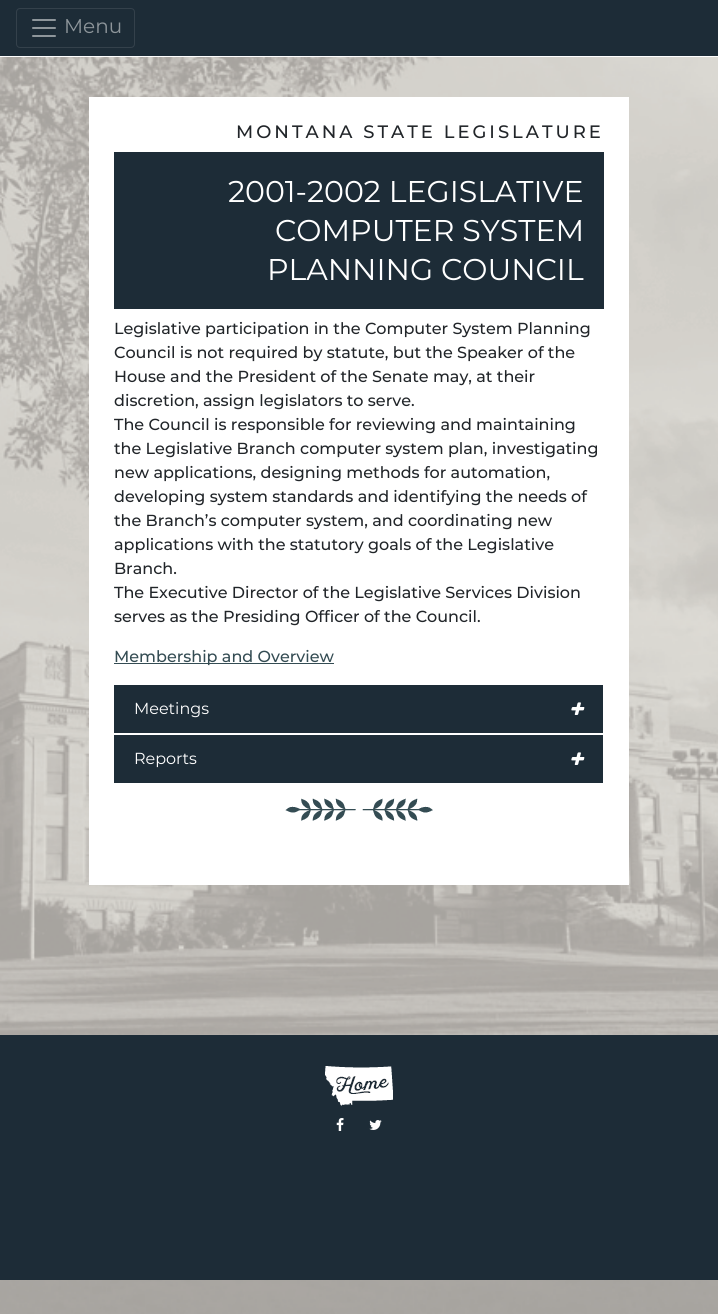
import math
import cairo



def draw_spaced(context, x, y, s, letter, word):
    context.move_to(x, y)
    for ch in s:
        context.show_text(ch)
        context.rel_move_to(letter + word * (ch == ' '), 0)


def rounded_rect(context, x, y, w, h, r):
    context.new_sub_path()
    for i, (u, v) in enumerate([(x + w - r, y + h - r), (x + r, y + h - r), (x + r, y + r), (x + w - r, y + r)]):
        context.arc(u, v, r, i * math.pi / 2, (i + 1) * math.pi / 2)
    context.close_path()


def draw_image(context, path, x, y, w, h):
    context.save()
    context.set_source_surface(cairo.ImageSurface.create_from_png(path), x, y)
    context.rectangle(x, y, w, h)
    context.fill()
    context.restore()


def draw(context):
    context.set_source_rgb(1, 1, 1)
    context.paint()
    draw_image(context, "images/1.png", 0, 57, 718, 1257)
    context.set_source_rgb(29 / 255, 44 / 255, 55 / 255)
    context.rectangle(0, 0, 718, 56)
    context.fill()
    rounded_rect(context, 16.5, 8.5, 118, 39, 3.5)
    context.set_source_rgb(52 / 255, 65 / 255, 75 / 255)
    context.set_line_width(1)
    context.stroke()
    draw_image(context, "images/2.png", 32, 19, 24, 18)
    context.set_source_rgb(1, 1, 1)
    context.rectangle(89, 97, 540, 788)
    context.fill()
    context.set_source_rgb(29 / 255, 44 / 255, 55 / 255)
    context.rectangle(114, 152, 490, 157)
    context.fill()
    context.set_source_rgb(52 / 255, 76 / 255, 83 / 255)
    context.rectangle(114, 663, 220, 1)
    context.fill()
    context.set_source_rgb(29 / 255, 44 / 255, 55 / 255)
    context.rectangle(114, 685, 489, 48)
    context.fill()
    draw_image(context, "images/3.png", 571, 702, 14, 13)
    context.rectangle(114, 735, 489, 48)
    context.fill()
    draw_image(context, "images/3.png", 571, 752, 14, 13)
    draw_image(context, "images/4.png", 285, 798, 148, 23)
    context.rectangle(0, 1035, 718, 245)
    context.fill()
    draw_image(context, "images/5.png", 325, 1066, 68, 40)
    draw_image(context, "images/6.png", 336, 1118, 8, 13)
    draw_image(context, "images/7.png", 369, 1120, 13, 10)
    context.select_font_face("Montserrat")
    context.set_font_size(20)
    context.set_source_rgb(142 / 255, 150 / 255, 155 / 255)
    context.move_to(64, 33)
    context.show_text("Menu")
    context.select_font_face("Montserrat Medium")
    context.set_font_size(18)
    context.set_source_rgb(33 / 255, 37 / 255, 41 / 255)
    draw_spaced(context, 236, 138, "MONTANA STATE LEGISLATURE", 3, 0)
    context.select_font_face("Montserrat")
    context.set_font_size(30)
    context.set_source_rgb(1, 1, 1)
    context.move_to(228, 202)
    context.show_text("2001-2002 LEGISLATIVE")
    context.move_to(275, 241)
    context.show_text("COMPUTER SYSTEM")
    context.move_to(267, 280)
    context.show_text("PLANNING COUNCIL")
    context.select_font_face("Montserrat Medium")
    context.set_font_size(16)
    context.set_source_rgb(33 / 255, 37 / 255, 41 / 255)
    context.move_to(114, 334)
    context.show_text("Legislative participation in the Computer System Planning")
    context.move_to(114, 358)
    context.show_text("Council is not required by statute, but the Speaker of the")
    context.move_to(114, 382)
    context.show_text("House and the President of the Senate may, at their")
    context.move_to(114, 406)
    context.show_text("discretion, assign legislators to serve.")
    context.move_to(114, 430)
    context.show_text("The Council is responsible for reviewing and maintaining")
    context.move_to(114, 454)
    context.show_text("the Legislative Branch computer system plan, investigating")
    context.move_to(114, 478)
    context.show_text("new applications, designing methods for automation,")
    context.move_to(114, 502)
    context.show_text("developing system standards and identifying the needs of")
    context.move_to(114, 526)
    context.show_text("the Branch’s computer system, and coordinating new")
    context.move_to(114, 550)
    context.show_text("applications with the statutory goals of the Legislative")
    context.move_to(114, 574)
    context.show_text("Branch.")
    context.move_to(114, 598)
    context.show_text("The Executive Director of the Legislative Services Division")
    context.move_to(114, 622)
    context.show_text("serves as the Presiding Officer of the Council.")
    context.set_source_rgb(52 / 255, 76 / 255, 83 / 255)
    context.move_to(114, 662)
    context.show_text("Membership and Overview")
    context.select_font_face("Montserrat")
    context.set_source_rgb(1, 1, 1)
    context.move_to(134, 714)
    context.show_text("Meetings")
    context.move_to(134, 764)
    context.show_text("Reports")


surface = cairo.ImageSurface(cairo.Format.RGB24, 718, 1314)
context = cairo.Context(surface)
options = cairo.FontOptions()
options.set_hint_metrics(cairo.HintMetrics.OFF)
options.set_hint_style(cairo.HintStyle.NONE)
context.set_font_options(options)
context.set_miter_limit(4)
draw(context)
surface.write_to_png("out.png")
